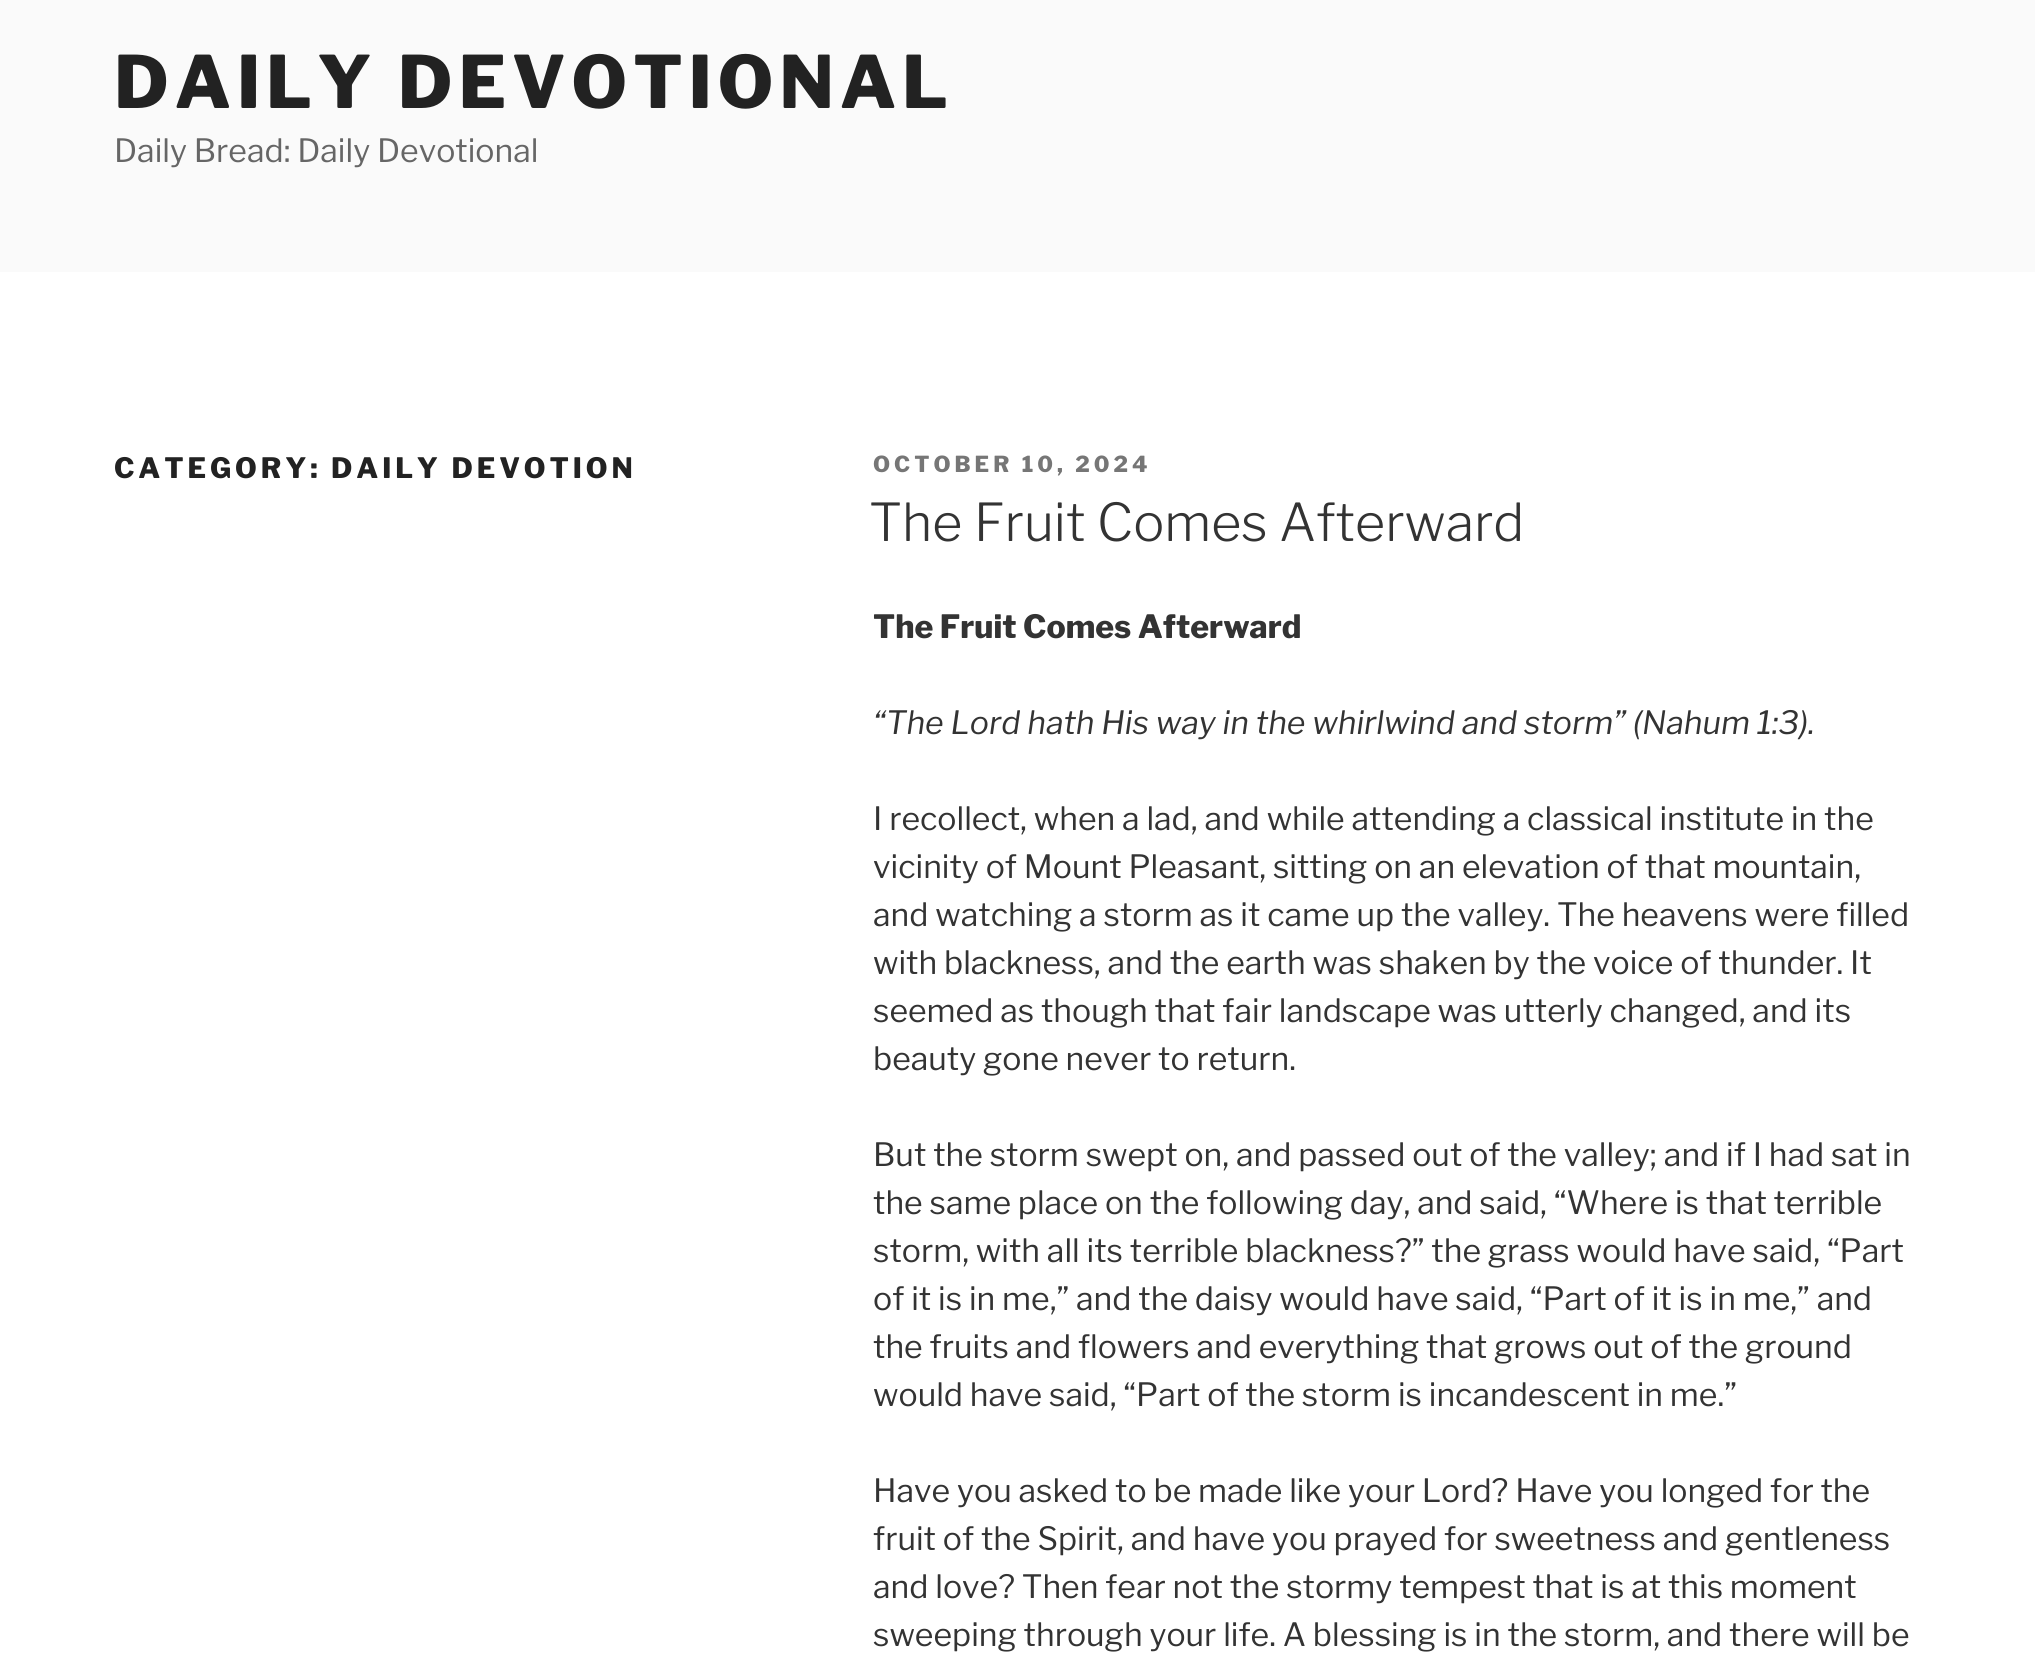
import math
import cairo



def draw_spaced(context, x, y, s, letter, word):
    context.move_to(x, y)
    for ch in s:
        context.show_text(ch)
        context.rel_move_to(letter + word * (ch == ' '), 0)


def draw(context):
    context.set_source_rgb(1, 1, 1)
    context.paint()
    context.set_source_rgb(250 / 255, 250 / 255, 250 / 255)
    context.rectangle(0, 0, 2035, 272)
    context.fill()
    context.select_font_face("Libre Franklin Thin")
    context.set_font_size(72)
    context.set_source_rgb(34 / 255, 34 / 255, 34 / 255)
    draw_spaced(context, 114, 108, "DAILY DEVOTIONAL", 5.75, 0)
    context.select_font_face("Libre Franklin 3 Thin")
    context.set_font_size(32)
    context.set_source_rgb(102 / 255, 102 / 255, 102 / 255)
    context.move_to(114, 162)
    context.show_text("Daily Bread: Daily Devotional")
    context.select_font_face("Libre Franklin Thin")
    context.set_font_size(28)
    context.set_source_rgb(34 / 255, 34 / 255, 34 / 255)
    draw_spaced(context, 114, 478, "CATEGORY: DAILY DEVOTION", 3.9, 0)
    context.set_font_size(22)
    context.set_source_rgb(118 / 255, 118 / 255, 118 / 255)
    draw_spaced(context, 873, 472, "OCTOBER 10, 2024", 4, 0)
    context.select_font_face("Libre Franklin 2 Thin")
    context.set_font_size(52)
    context.set_source_rgb(51 / 255, 51 / 255, 51 / 255)
    context.move_to(869, 541)
    context.show_text("The Fruit Comes Afterward")
    context.select_font_face("Libre Franklin Thin")
    context.set_font_size(32)
    context.move_to(873, 638)
    context.show_text("The Fruit Comes Afterward")
    context.select_font_face("Libre Franklin Thin", cairo.FontSlant.ITALIC)
    context.move_to(873, 734)
    context.show_text("“The Lord hath His way in the whirlwind and storm” (Nahum 1:3).")
    context.select_font_face("Libre Franklin 3 Thin")
    context.move_to(873, 830)
    context.show_text("I recollect, when a lad, and while attending a classical institute in the")
    context.move_to(873, 878)
    context.show_text("vicinity of Mount Pleasant, sitting on an elevation of that mountain,")
    context.move_to(873, 926)
    context.show_text("and watching a storm as it came up the valley. The heavens were filled")
    context.move_to(873, 974)
    context.show_text("with blackness, and the earth was shaken by the voice of thunder. It")
    context.move_to(873, 1022)
    context.show_text("seemed as though that fair landscape was utterly changed, and its")
    context.move_to(873, 1070)
    context.show_text("beauty gone never to return.")
    context.move_to(873, 1166)
    context.show_text("But the storm swept on, and passed out of the valley; and if I had sat in")
    context.move_to(873, 1214)
    context.show_text("the same place on the following day, and said, “Where is that terrible")
    context.move_to(873, 1262)
    context.show_text("storm, with all its terrible blackness?” the grass would have said, “Part")
    context.move_to(873, 1310)
    context.show_text("of it is in me,” and the daisy would have said, “Part of it is in me,” and")
    context.move_to(873, 1358)
    context.show_text("the fruits and flowers and everything that grows out of the ground")
    context.move_to(873, 1406)
    context.show_text("would have said, “Part of the storm is incandescent in me.”")
    context.move_to(873, 1502)
    context.show_text("Have you asked to be made like your Lord? Have you longed for the")
    context.move_to(873, 1550)
    context.show_text("fruit of the Spirit, and have you prayed for sweetness and gentleness")
    context.move_to(873, 1598)
    context.show_text("and love? Then fear not the stormy tempest that is at this moment")
    context.move_to(873, 1646)
    context.show_text("sweeping through your life. A blessing is in the storm, and there will be")


surface = cairo.ImageSurface(cairo.Format.RGB24, 2035, 1660)
context = cairo.Context(surface)
options = cairo.FontOptions()
options.set_hint_metrics(cairo.HintMetrics.OFF)
options.set_hint_style(cairo.HintStyle.NONE)
context.set_font_options(options)
context.set_miter_limit(4)
draw(context)
surface.write_to_png("out.png")
